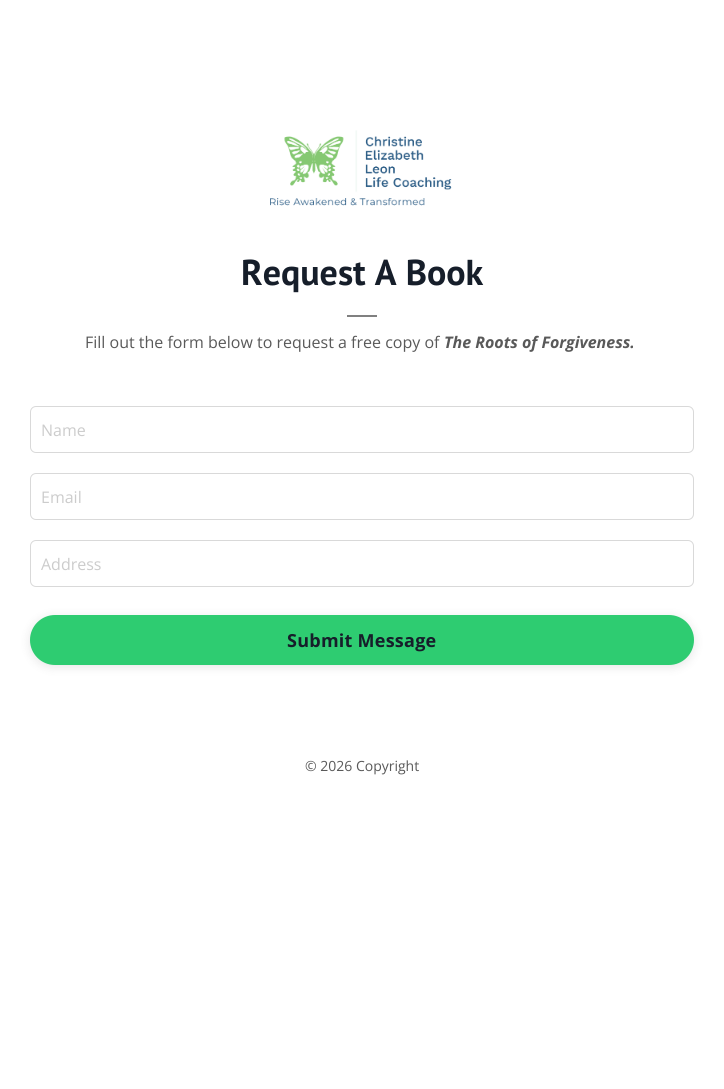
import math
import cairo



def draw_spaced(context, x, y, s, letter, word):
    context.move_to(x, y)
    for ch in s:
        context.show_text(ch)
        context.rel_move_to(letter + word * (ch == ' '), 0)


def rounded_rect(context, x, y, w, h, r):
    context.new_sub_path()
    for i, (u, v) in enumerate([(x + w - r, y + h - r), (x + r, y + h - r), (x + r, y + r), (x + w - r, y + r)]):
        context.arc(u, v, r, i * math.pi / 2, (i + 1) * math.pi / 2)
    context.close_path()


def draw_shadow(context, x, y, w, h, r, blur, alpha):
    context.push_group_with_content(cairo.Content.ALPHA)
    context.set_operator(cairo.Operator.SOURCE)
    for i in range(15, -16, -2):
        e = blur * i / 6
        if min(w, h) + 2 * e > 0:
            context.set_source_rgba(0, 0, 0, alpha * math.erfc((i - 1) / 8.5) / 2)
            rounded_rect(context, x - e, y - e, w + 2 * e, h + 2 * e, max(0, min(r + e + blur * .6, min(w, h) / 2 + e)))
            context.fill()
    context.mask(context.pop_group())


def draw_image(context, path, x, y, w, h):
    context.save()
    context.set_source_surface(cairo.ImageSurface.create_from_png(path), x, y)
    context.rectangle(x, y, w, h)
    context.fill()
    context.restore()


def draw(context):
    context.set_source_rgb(1, 1, 1)
    context.paint()
    draw_image(context, "images/1.png", 270, 130, 182, 76)
    context.set_source_rgb(128 / 255, 128 / 255, 128 / 255)
    context.rectangle(347, 315, 30, 2)
    context.fill()
    rounded_rect(context, 30.5, 406.5, 663, 46, 5.5)
    context.set_source_rgb(217 / 255, 217 / 255, 217 / 255)
    context.set_line_width(1)
    context.stroke()
    rounded_rect(context, 30.5, 473.5, 663, 46, 5.5)
    context.stroke()
    rounded_rect(context, 30.5, 540.5, 663, 46, 5.5)
    context.stroke()
    context.set_source_rgb(0, 0, 0)
    draw_shadow(context, 30, 617, 664, 50, 25, 5, 0.1)
    context.set_source_rgb(46 / 255, 204 / 255, 113 / 255)
    rounded_rect(context, 31, 616, 662, 48, 24)
    context.fill_preserve()
    context.set_line_width(2)
    context.stroke()
    context.select_font_face("PT Sans", cairo.FontSlant.NORMAL, cairo.FontWeight.BOLD)
    context.set_font_size(36)
    context.set_source_rgb(22 / 255, 30 / 255, 42 / 255)
    context.move_to(241, 285)
    context.show_text("Request A Book")
    context.select_font_face("Open Sans")
    context.set_font_size(16)
    context.set_source_rgb(89 / 255, 89 / 255, 89 / 255)
    context.move_to(85, 348)
    context.show_text("Fill out the form below to request a free copy of")
    context.select_font_face("Open Sans", cairo.FontSlant.ITALIC, cairo.FontWeight.BOLD)
    context.move_to(444, 348)
    context.show_text("The Roots of Forgiveness.")
    context.select_font_face("Open Sans")
    context.set_source_rgb(204 / 255, 204 / 255, 204 / 255)
    context.move_to(41, 436)
    context.show_text("Name")
    context.move_to(41, 503)
    context.show_text("Email")
    context.move_to(41, 570)
    context.show_text("Address")
    context.select_font_face("Open Sans", cairo.FontSlant.NORMAL, cairo.FontWeight.BOLD)
    context.set_font_size(18)
    context.set_source_rgb(22 / 255, 30 / 255, 42 / 255)
    draw_spaced(context, 287, 647, "Submit Message", 0.25, 0)
    context.select_font_face("Open Sans")
    context.set_font_size(14)
    context.set_source_rgb(89 / 255, 89 / 255, 89 / 255)
    context.move_to(305, 771)
    context.show_text("© 2026 Copyright")


surface = cairo.ImageSurface(cairo.Format.RGB24, 724, 1089)
context = cairo.Context(surface)
options = cairo.FontOptions()
options.set_hint_metrics(cairo.HintMetrics.OFF)
options.set_hint_style(cairo.HintStyle.NONE)
context.set_font_options(options)
context.set_miter_limit(4)
draw(context)
surface.write_to_png("out.png")
